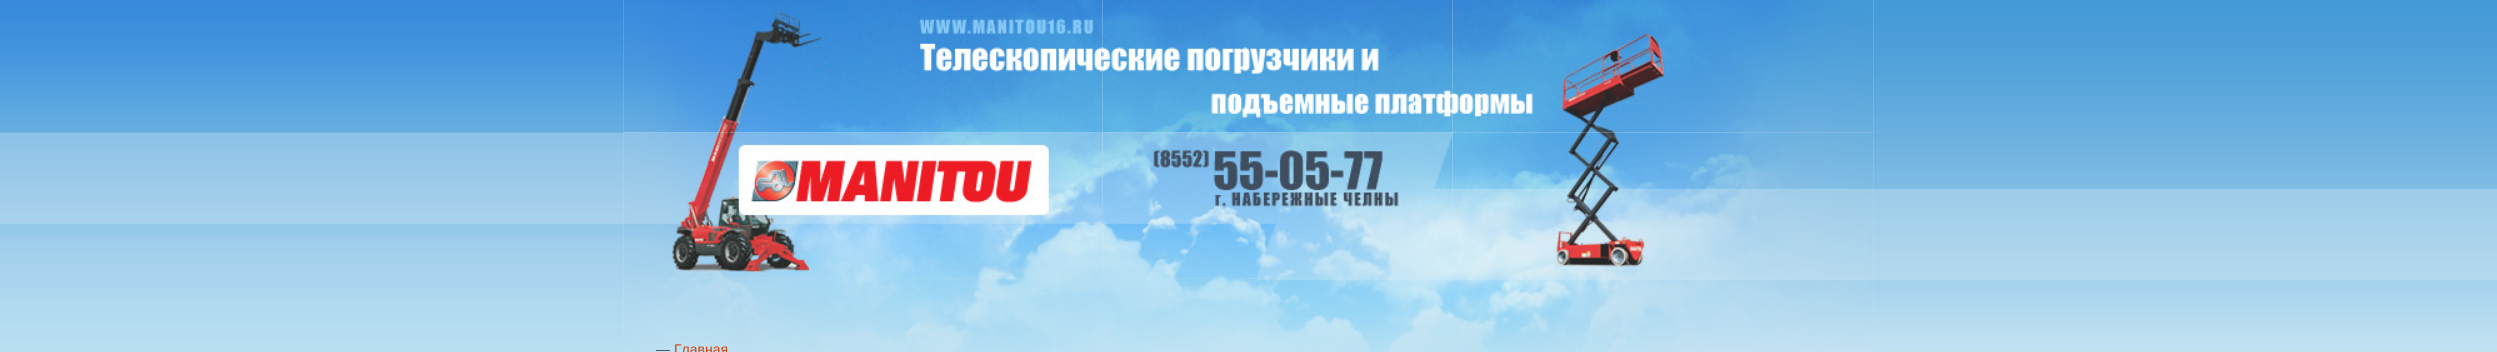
import math
import cairo



def draw_image(context, path, x, y, w, h):
    context.save()
    context.set_source_surface(cairo.ImageSurface.create_from_png(path), x, y)
    context.rectangle(x, y, w, h)
    context.fill()
    context.restore()


def draw(context):
    context.set_source_rgb(205 / 255, 231 / 255, 244 / 255)
    context.paint()
    draw_image(context, "images/1.png", 0, 0, 624, 352)
    draw_image(context, "images/2.png", 623, 0, 480, 133)
    draw_image(context, "images/3.png", 1102, 0, 351, 133)
    draw_image(context, "images/8.png", 624, 278, 1250, 74)
    draw_image(context, "images/9.png", 1873, 0, 624, 352)
    draw_image(context, "images/4.png", 1452, 0, 422, 133)
    draw_image(context, "images/5.png", 623, 132, 480, 147)
    draw_image(context, "images/6.png", 1102, 132, 351, 147)
    draw_image(context, "images/7.png", 1452, 132, 422, 147)
    context.select_font_face("Liberation Sans")
    context.set_font_size(14)
    context.set_source_rgb(77 / 255, 79 / 255, 78 / 255)
    context.move_to(656, 354)
    context.show_text("—")
    context.set_source_rgb(207 / 255, 66 / 255, 13 / 255)
    context.move_to(674, 354)
    context.show_text("Главная")


surface = cairo.ImageSurface(cairo.Format.RGB24, 2497, 352)
context = cairo.Context(surface)
options = cairo.FontOptions()
options.set_hint_metrics(cairo.HintMetrics.OFF)
options.set_hint_style(cairo.HintStyle.NONE)
context.set_font_options(options)
context.set_miter_limit(4)
draw(context)
surface.write_to_png("out.png")
